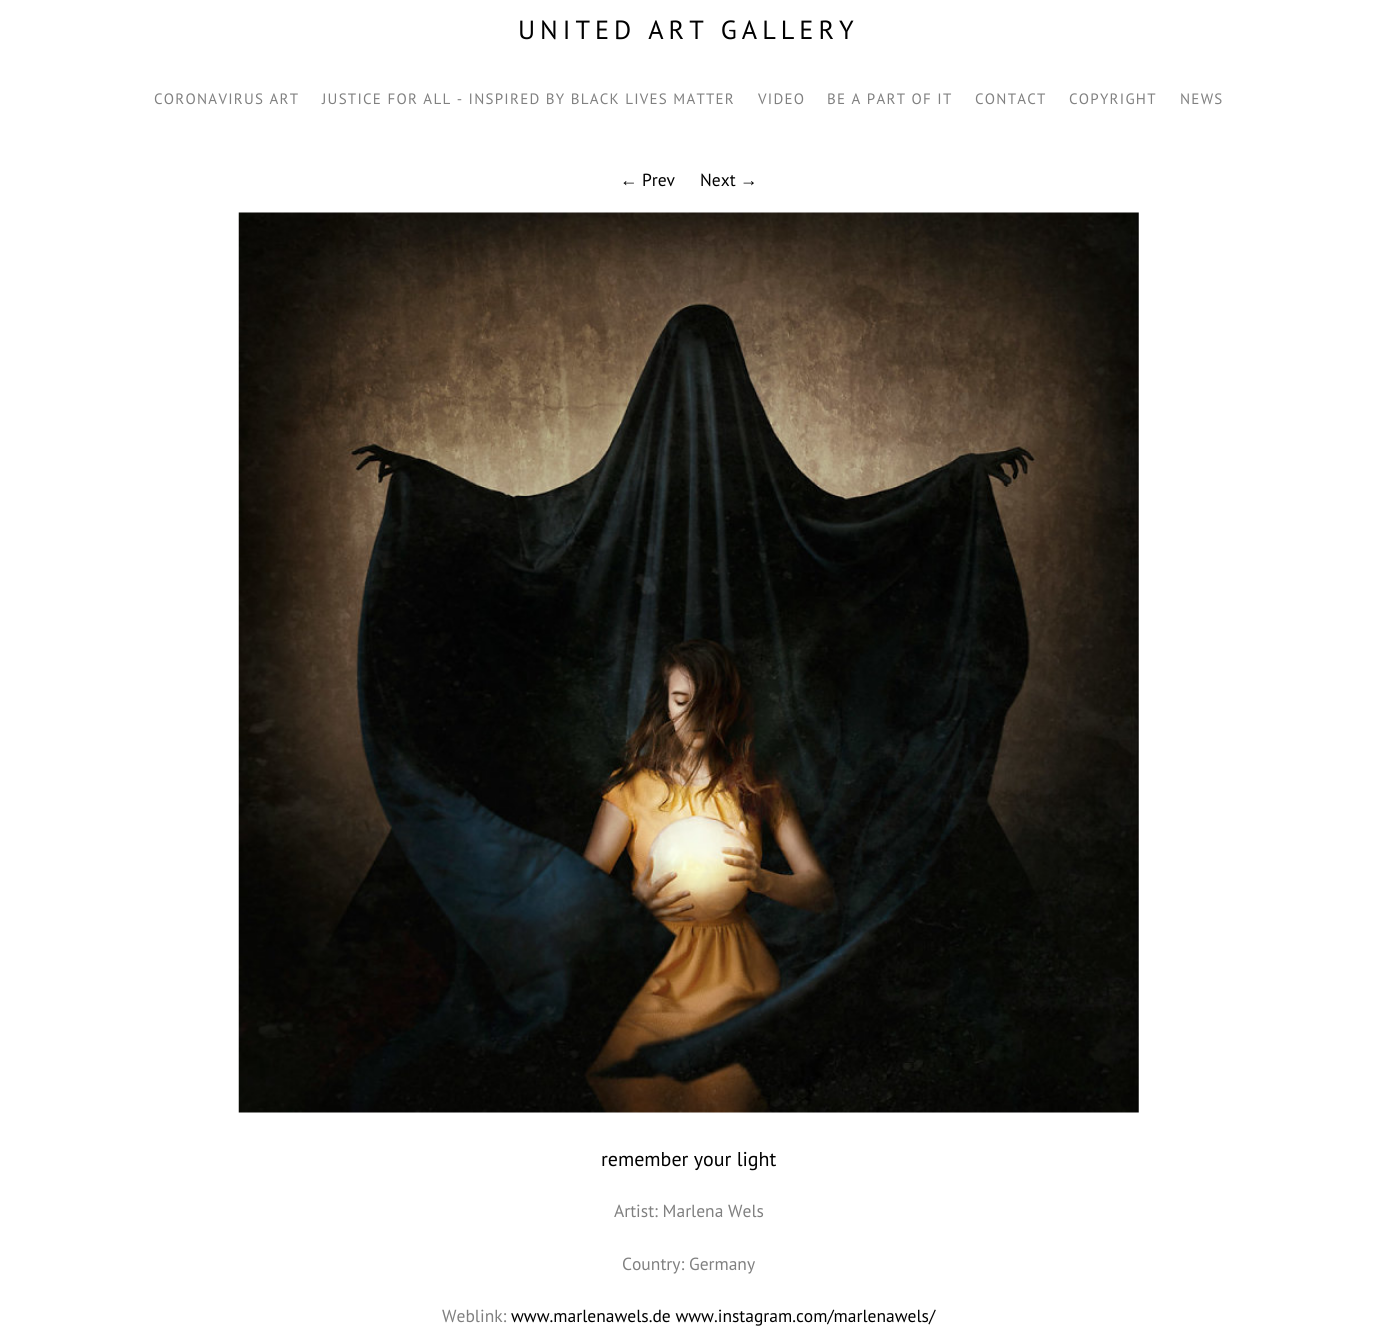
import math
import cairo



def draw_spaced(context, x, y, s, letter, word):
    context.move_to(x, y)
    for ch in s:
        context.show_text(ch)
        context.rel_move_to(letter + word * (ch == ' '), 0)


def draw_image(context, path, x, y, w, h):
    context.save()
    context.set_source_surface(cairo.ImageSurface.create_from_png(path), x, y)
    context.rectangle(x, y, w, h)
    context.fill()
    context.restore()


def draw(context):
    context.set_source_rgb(1, 1, 1)
    context.paint()
    draw_image(context, "images/1.png", 238, 212, 901, 901)
    context.select_font_face("PT Sans")
    context.set_font_size(26.25)
    context.set_source_rgb(0, 0, 0)
    draw_spaced(context, 518, 39, "UNITED ART GALLERY", 5, 0)
    context.set_font_size(15)
    context.set_source_rgb(128 / 255, 128 / 255, 128 / 255)
    draw_spaced(context, 154, 104, "CORONAVIRUS ART", 1.25, 0)
    draw_spaced(context, 322, 104, "JUSTICE FOR ALL - INSPIRED BY BLACK LIVES MATTER", 1.25, 0)
    draw_spaced(context, 758, 104, "VIDEO", 1.25, 0)
    draw_spaced(context, 827, 104, "BE A PART OF IT", 1.25, 0)
    draw_spaced(context, 975, 104, "CONTACT", 1.25, 0)
    draw_spaced(context, 1069, 104, "COPYRIGHT", 1.25, 0)
    draw_spaced(context, 1180, 104, "NEWS", 1.25, 0)
    context.select_font_face("Liberation Sans")
    context.set_font_size(17.5)
    context.set_source_rgb(0, 0, 0)
    context.move_to(620, 186)
    context.show_text("←")
    context.select_font_face("PT Sans")
    context.move_to(642, 186)
    context.show_text("Prev")
    context.move_to(700, 186)
    context.show_text("Next")
    context.select_font_face("Liberation Sans")
    context.move_to(740, 186)
    context.show_text("→")
    context.select_font_face("PT Sans")
    context.set_font_size(20)
    context.move_to(601, 1166)
    context.show_text("remember your light")
    context.set_font_size(17.5)
    context.set_source_rgb(128 / 255, 128 / 255, 128 / 255)
    context.move_to(614, 1217)
    context.show_text("Artist: Marlena Wels")
    context.move_to(622, 1270)
    context.show_text("Country: Germany")
    context.move_to(442, 1322)
    context.show_text("Weblink:")
    context.set_source_rgb(0, 0, 0)
    context.move_to(511, 1322)
    context.show_text("www.marlenawels.de www.instagram.com/marlenawels/")


surface = cairo.ImageSurface(cairo.Format.RGB24, 1377, 1331)
context = cairo.Context(surface)
options = cairo.FontOptions()
options.set_hint_metrics(cairo.HintMetrics.OFF)
options.set_hint_style(cairo.HintStyle.NONE)
context.set_font_options(options)
context.set_miter_limit(4)
draw(context)
surface.write_to_png("out.png")
